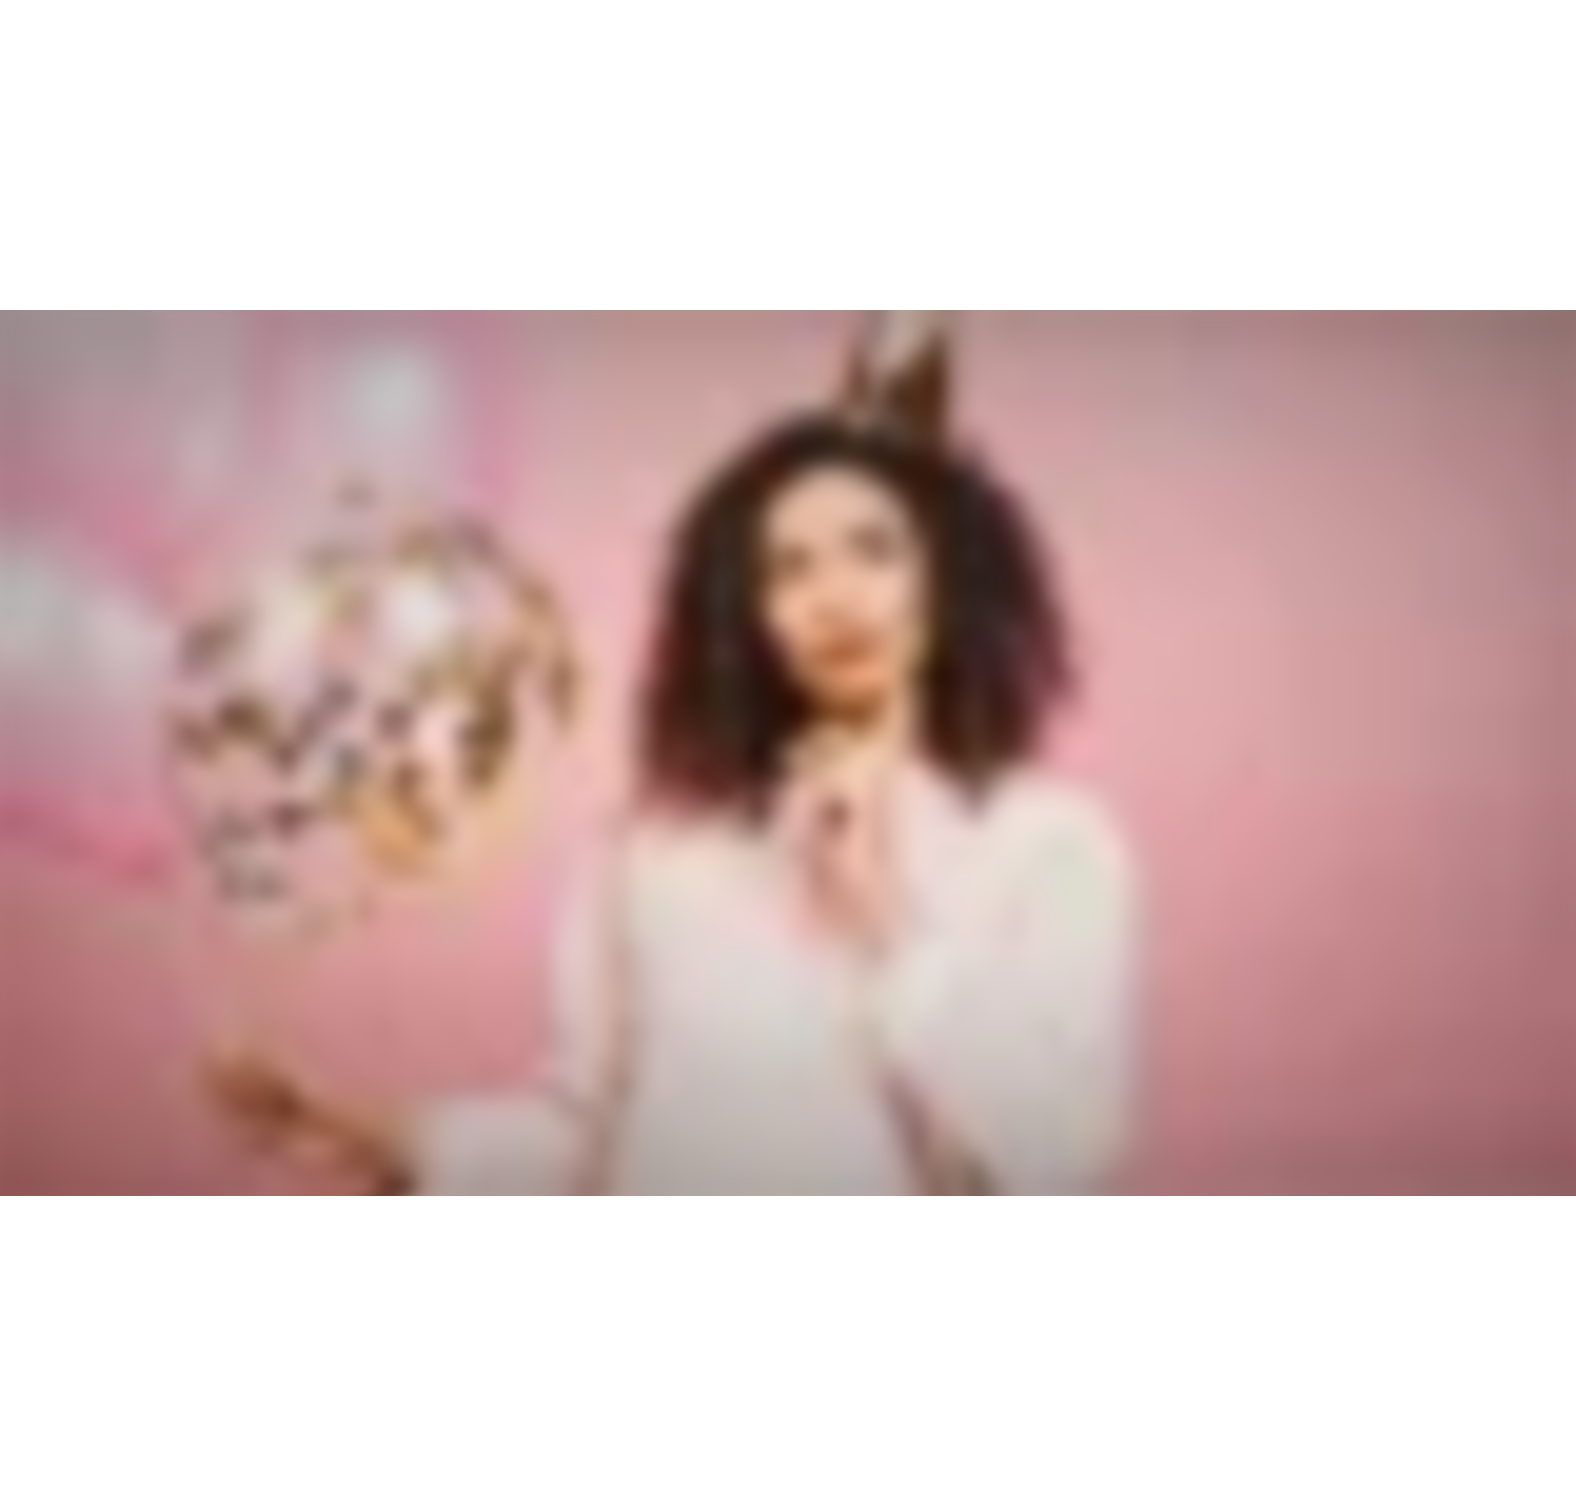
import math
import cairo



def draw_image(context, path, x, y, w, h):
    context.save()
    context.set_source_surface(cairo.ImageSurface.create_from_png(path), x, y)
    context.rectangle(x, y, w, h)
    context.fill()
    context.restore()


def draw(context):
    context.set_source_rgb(1, 1, 1)
    context.paint()
    draw_image(context, "images/1.png", 0, 310, 1576, 886)


surface = cairo.ImageSurface(cairo.Format.RGB24, 1576, 1506)
context = cairo.Context(surface)
options = cairo.FontOptions()
options.set_hint_metrics(cairo.HintMetrics.OFF)
options.set_hint_style(cairo.HintStyle.NONE)
context.set_font_options(options)
context.set_miter_limit(4)
draw(context)
surface.write_to_png("out.png")
